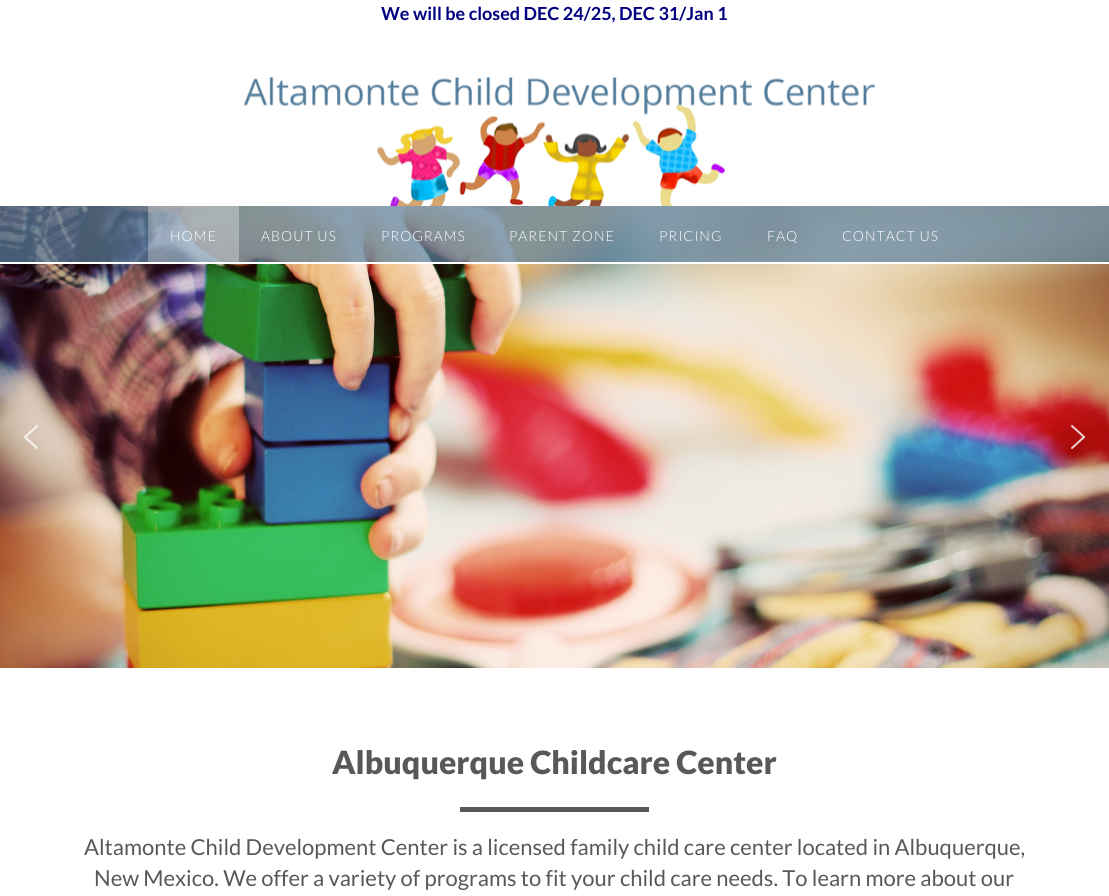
import math
import cairo



def draw_spaced(context, x, y, s, letter, word):
    context.move_to(x, y)
    for ch in s:
        context.show_text(ch)
        context.rel_move_to(letter + word * (ch == ' '), 0)


def draw_image(context, path, x, y, w, h):
    context.save()
    context.set_source_surface(cairo.ImageSurface.create_from_png(path), x, y)
    context.rectangle(x, y, w, h)
    context.fill()
    context.restore()


def draw(context):
    context.set_source_rgb(1, 1, 1)
    context.paint()
    draw_image(context, "images/1.png", 0, 206, 1109, 462)
    draw_image(context, "images/2.png", 24, 425, 14, 24)
    draw_image(context, "images/3.png", 1071, 425, 14, 24)
    draw_image(context, "images/4.png", 243, 76, 633, 130)
    context.set_source_rgba(90 / 255, 129 / 255, 158 / 255, 0.7)
    context.rectangle(0, 206, 1109, 56)
    context.fill()
    context.set_source_rgb(1, 1, 1)
    context.rectangle(0, 262, 1109, 2)
    context.fill()
    context.set_source_rgba(1, 1, 1, 0.3)
    context.rectangle(148, 206, 91, 56)
    context.fill()
    context.set_source_rgb(88 / 255, 88 / 255, 90 / 255)
    context.rectangle(460, 807, 189, 5)
    context.fill()
    context.select_font_face("Lato", cairo.FontSlant.NORMAL, cairo.FontWeight.BOLD)
    context.set_font_size(18)
    context.set_source_rgb(0, 0, 128 / 255)
    context.move_to(381, 20)
    context.show_text("We will be closed DEC 24/25, DEC 31/Jan 1")
    context.select_font_face("Lato Light")
    context.set_font_size(14)
    context.set_source_rgb(1, 1, 1)
    draw_spaced(context, 170, 241, "HOME", 1, 0)
    draw_spaced(context, 261, 241, "ABOUT US", 1, 0)
    draw_spaced(context, 381, 241, "PROGRAMS", 1, 0)
    draw_spaced(context, 509, 241, "PARENT ZONE", 1, 0)
    draw_spaced(context, 659, 241, "PRICING", 1, 0)
    draw_spaced(context, 767, 241, "FAQ", 1, 0)
    draw_spaced(context, 842, 241, "CONTACT US", 1, 0)
    context.select_font_face("Lato Black")
    context.set_font_size(32)
    context.set_source_rgb(88 / 255, 88 / 255, 90 / 255)
    context.move_to(332, 774)
    context.show_text("Albuquerque Childcare Center")
    context.select_font_face("Lato")
    context.set_font_size(22)
    context.move_to(84, 855)
    context.show_text("Altamonte Child Development Center is a licensed family child care center located in Albuquerque,")
    context.move_to(94, 886)
    context.show_text("New Mexico. We offer a variety of programs to fit your child care needs. To learn more about our")


surface = cairo.ImageSurface(cairo.Format.RGB24, 1109, 896)
context = cairo.Context(surface)
options = cairo.FontOptions()
options.set_hint_metrics(cairo.HintMetrics.OFF)
options.set_hint_style(cairo.HintStyle.NONE)
context.set_font_options(options)
context.set_miter_limit(4)
draw(context)
surface.write_to_png("out.png")
